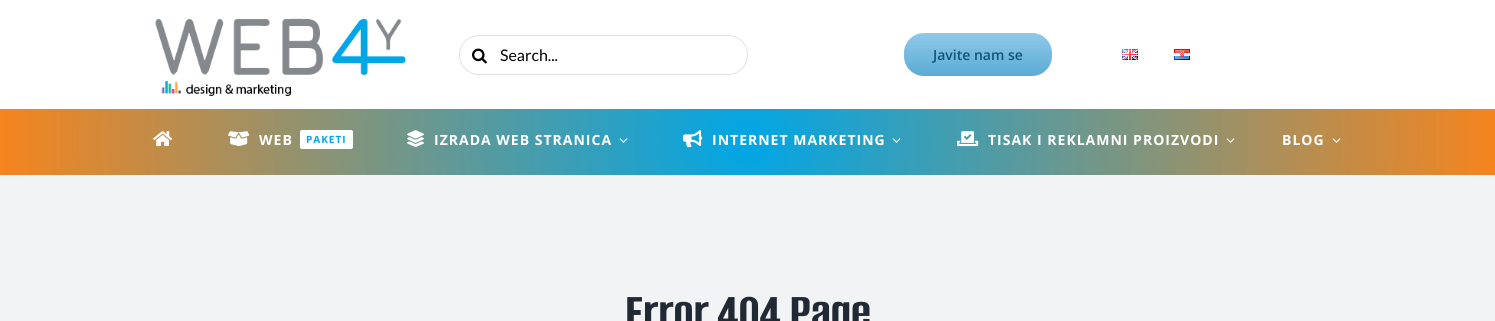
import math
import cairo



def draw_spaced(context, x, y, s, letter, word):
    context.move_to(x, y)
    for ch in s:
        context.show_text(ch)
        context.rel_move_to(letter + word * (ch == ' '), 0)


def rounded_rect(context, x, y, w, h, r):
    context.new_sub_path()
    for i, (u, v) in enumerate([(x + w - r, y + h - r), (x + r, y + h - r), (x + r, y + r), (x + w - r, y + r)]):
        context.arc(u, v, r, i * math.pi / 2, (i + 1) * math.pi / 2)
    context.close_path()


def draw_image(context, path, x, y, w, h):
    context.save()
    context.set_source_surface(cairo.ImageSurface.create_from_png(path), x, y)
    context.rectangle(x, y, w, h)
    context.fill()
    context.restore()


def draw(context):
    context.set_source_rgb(1, 1, 1)
    context.paint()
    draw_image(context, "images/1.png", 155, 18, 251, 78)
    rounded_rect(context, 459.5, 35.5, 288, 39, 19.5)
    context.set_source_rgb(226 / 255, 226 / 255, 226 / 255)
    context.set_line_width(1)
    context.stroke()
    draw_image(context, "images/2.png", 472, 48, 15, 16)
    gradient = cairo.LinearGradient(978, 33, 978, 76)
    gradient.add_color_stop_rgba(0, 144 / 255, 201 / 255, 232 / 255, 1)
    gradient.add_color_stop_rgba(1, 90 / 255, 171 / 255, 214 / 255, 1)
    context.set_source(gradient)
    rounded_rect(context, 904, 33, 148, 43, 20)
    context.fill()
    draw_image(context, "images/3.png", 1122, 49, 16, 11)
    draw_image(context, "images/4.png", 1174, 49, 16, 11)
    gradient = cairo.RadialGradient(748, 142, 0, 748, 142, 748)
    gradient.add_color_stop_rgba(0, 0, 166 / 255, 230 / 255, 1)
    gradient.add_color_stop_rgba(1, 245 / 255, 133 / 255, 30 / 255, 1)
    context.set_source(gradient)
    context.rectangle(0, 109, 1495, 66)
    context.fill()
    draw_image(context, "images/5.png", 153, 131, 20, 16)
    draw_image(context, "images/6.png", 228, 131, 22, 15)
    context.set_source_rgb(1, 1, 1)
    rounded_rect(context, 300.5, 130.5, 52, 18, 1.5)
    context.fill_preserve()
    context.stroke()
    draw_image(context, "images/7.png", 407, 130, 17, 18)
    draw_image(context, "images/8.png", 619, 138, 9, 5)
    draw_image(context, "images/9.png", 683, 130, 20, 18)
    draw_image(context, "images/10.png", 892, 138, 9, 5)
    draw_image(context, "images/11.png", 957, 131, 22, 16)
    draw_image(context, "images/12.png", 1226, 138, 9, 5)
    draw_image(context, "images/13.png", 1332, 138, 9, 5)
    context.set_source_rgb(242 / 255, 243 / 255, 245 / 255)
    context.rectangle(0, 175, 1495, 146)
    context.fill()
    context.select_font_face("Lato")
    context.set_font_size(16)
    context.set_source_rgb(0, 0, 0)
    context.move_to(500, 61)
    context.show_text("Search...")
    context.select_font_face("Open Sans SemiBold")
    context.set_font_size(14)
    context.set_source_rgb(16 / 255, 83 / 255, 120 / 255)
    context.move_to(933, 60)
    context.show_text("Javite nam se")
    context.select_font_face("Open Sans", cairo.FontSlant.NORMAL, cairo.FontWeight.BOLD)
    context.set_source_rgb(1, 1, 1)
    draw_spaced(context, 259, 145, "WEB", 1, 0)
    context.set_font_size(10)
    context.set_source_rgb(0, 166 / 255, 230 / 255)
    draw_spaced(context, 306, 143, "PAKETI", 1, 0)
    context.set_font_size(14)
    context.set_source_rgb(1, 1, 1)
    draw_spaced(context, 434, 145, "IZRADA WEB STRANICA", 1, 0)
    draw_spaced(context, 712, 145, "INTERNET MARKETING", 1, 0)
    draw_spaced(context, 988, 145, "TISAK I REKLAMNI PROIZVODI", 1, 0)
    draw_spaced(context, 1282, 145, "BLOG", 1, 0)
    context.select_font_face("Alumni Sans", cairo.FontSlant.NORMAL, cairo.FontWeight.BOLD)
    context.set_font_size(54)
    context.set_source_rgb(33 / 255, 41 / 255, 52 / 255)
    context.move_to(625, 329)
    context.show_text("Error 404 Page")


surface = cairo.ImageSurface(cairo.Format.RGB24, 1495, 321)
context = cairo.Context(surface)
options = cairo.FontOptions()
options.set_hint_metrics(cairo.HintMetrics.OFF)
options.set_hint_style(cairo.HintStyle.NONE)
context.set_font_options(options)
context.set_miter_limit(4)
draw(context)
surface.write_to_png("out.png")
